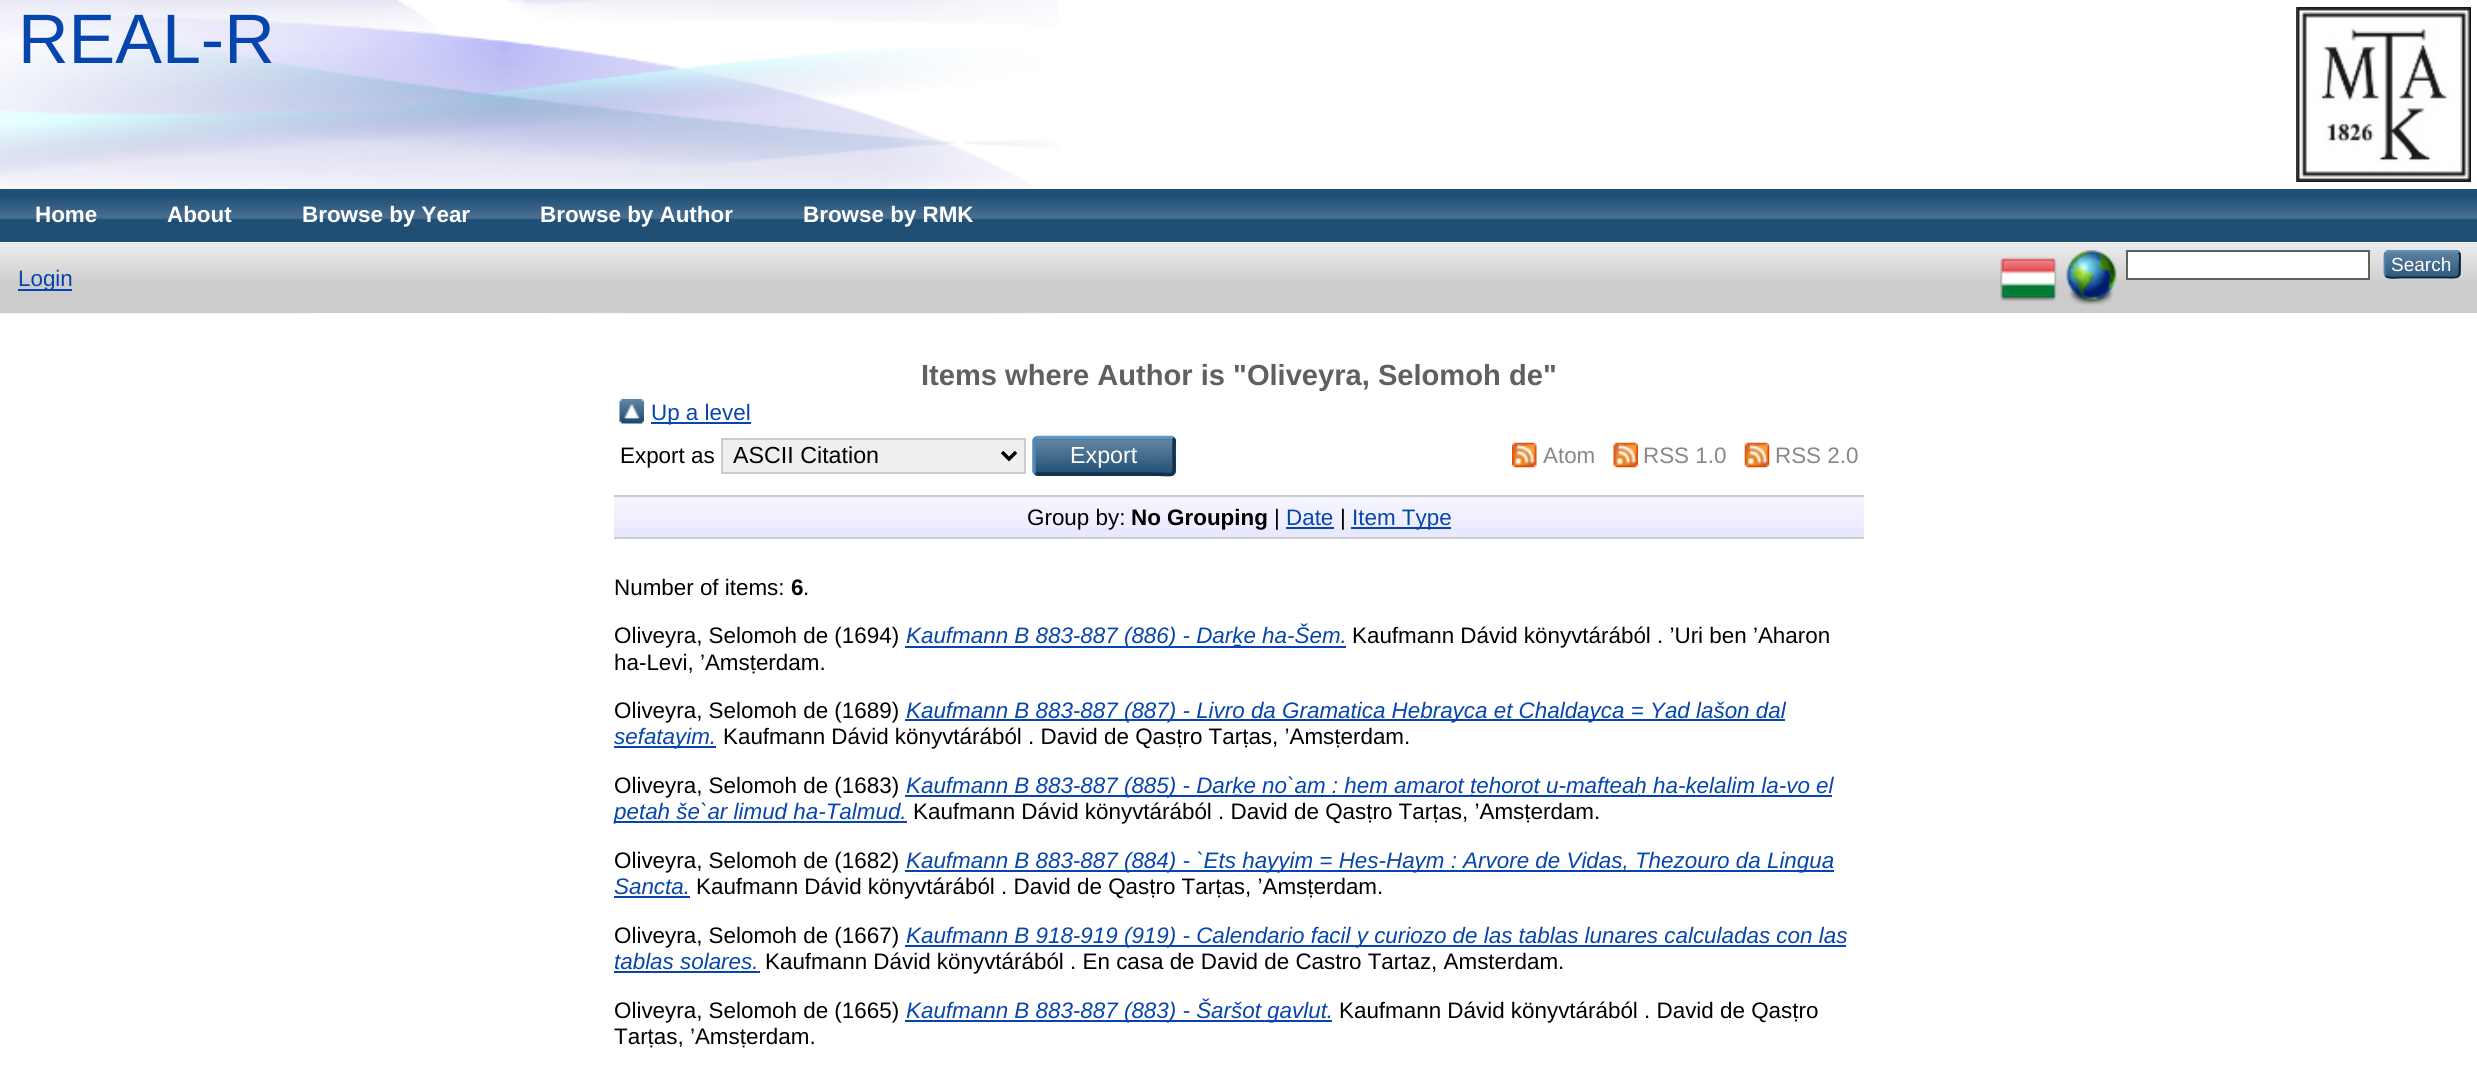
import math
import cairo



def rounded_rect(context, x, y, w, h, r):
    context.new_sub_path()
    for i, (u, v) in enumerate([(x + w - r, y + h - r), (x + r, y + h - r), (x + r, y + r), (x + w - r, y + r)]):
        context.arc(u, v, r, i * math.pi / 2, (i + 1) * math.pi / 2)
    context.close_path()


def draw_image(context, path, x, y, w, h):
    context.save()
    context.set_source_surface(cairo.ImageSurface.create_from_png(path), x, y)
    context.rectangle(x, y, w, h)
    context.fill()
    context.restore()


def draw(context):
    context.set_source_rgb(1, 1, 1)
    context.paint()
    draw_image(context, "images/1.png", 0, 0, 1058, 314)
    draw_image(context, "images/2.png", 2296, 7, 175, 175)
    context.set_source_rgb(32 / 255, 79 / 255, 118 / 255)
    context.rectangle(0, 189, 2477, 53)
    context.fill()
    draw_image(context, "images/3.png", 0, 199, 2477, 21)
    context.set_source_rgb(1, 1, 1)
    context.rectangle(0, 242, 1058, 1)
    context.fill()
    context.set_source_rgb(204 / 255, 204 / 255, 204 / 255)
    context.rectangle(0, 243, 2477, 70)
    context.fill()
    draw_image(context, "images/4.png", 0, 243, 2477, 38)
    draw_image(context, "images/5.png", 2000, 257, 57, 45)
    draw_image(context, "images/6.png", 2066, 250, 51, 56)
    context.set_source_rgb(1, 1, 1)
    context.rectangle(2127, 251, 242, 28)
    context.fill_preserve()
    context.set_source_rgb(96 / 255, 96 / 255, 96 / 255)
    context.stroke()
    context.set_source_rgb(31 / 255, 79 / 255, 118 / 255)
    rounded_rect(context, 2384, 250, 77, 28, 5)
    context.fill()
    draw_image(context, "images/7.png", 2384, 250, 77, 28)
    context.new_path()
    context.move_to(2385.5, 252.5)
    context.line_to(2388.5, 251)
    context.line_to(2455.5, 251)
    context.line_to(2458.5, 252.5)
    context.set_source_rgb(91 / 255, 151 / 255, 199 / 255)
    context.set_line_width(1.8)
    context.stroke()
    context.new_path()
    context.move_to(2458.5, 252.5)
    context.curve_to(2461, 255, 2459.5, 261, 2459.5, 264)
    context.curve_to(2459.5, 279.5, 2460, 277.5, 2444, 277.5)
    context.line_to(2400, 277.5)
    context.curve_to(2399, 277.5, 2388.5, 279, 2385.5, 276)
    context.set_source_rgb(13 / 255, 33 / 255, 49 / 255)
    context.stroke()
    context.new_path()
    context.move_to(2385.5, 276)
    context.curve_to(2385, 275.5, 2384.5, 274, 2384.5, 273)
    context.line_to(2384.5, 255.5)
    context.curve_to(2384.5, 254.5, 2385, 253, 2385.5, 252.5)
    context.set_source_rgb(82 / 255, 135 / 255, 179 / 255)
    context.stroke()
    context.set_source_rgb(6 / 255, 69 / 255, 173 / 255)
    context.rectangle(18, 289, 54, 2)
    context.fill()
    draw_image(context, "images/8.png", 619, 399, 25, 25)
    context.rectangle(651, 422, 100, 2)
    context.fill()
    context.set_source_rgb(239 / 255, 239 / 255, 239 / 255)
    context.rectangle(722, 439, 303, 34)
    context.fill_preserve()
    context.set_source_rgb(204 / 255, 204 / 255, 204 / 255)
    context.set_line_width(2)
    context.stroke()
    context.new_path()
    context.move_to(1002, 452)
    context.line_to(1009, 459)
    context.line_to(1016, 452)
    context.set_source_rgb(0, 0, 0)
    context.set_line_width(3.5)
    context.stroke()
    context.set_source_rgb(31 / 255, 79 / 255, 118 / 255)
    rounded_rect(context, 1033, 436, 143, 40, 5)
    context.fill()
    draw_image(context, "images/9.png", 1035, 439, 141, 33)
    context.new_path()
    context.move_to(1035.5, 438.5)
    context.curve_to(1036, 438, 1037, 437.5, 1038, 437.5)
    context.line_to(1171, 437.5)
    context.curve_to(1171.5, 437.5, 1172.5, 438, 1173, 438.5)
    context.set_source_rgb(91 / 255, 151 / 255, 199 / 255)
    context.stroke()
    context.new_path()
    context.move_to(1173, 438.5)
    context.curve_to(1175, 440.5, 1174, 444, 1174, 446)
    context.line_to(1174, 456)
    context.curve_to(1174, 480, 1177.5, 474, 1148.5, 474)
    context.line_to(1038, 474)
    context.line_to(1035.5, 473)
    context.set_source_rgb(19 / 255, 50 / 255, 74 / 255)
    context.stroke()
    context.new_path()
    context.move_to(1035.5, 473)
    context.curve_to(1034.5, 472.5, 1034, 471.5, 1034, 471)
    context.line_to(1034, 441)
    context.curve_to(1034, 440, 1034.5, 439, 1035.5, 438.5)
    context.set_source_rgb(82 / 255, 135 / 255, 179 / 255)
    context.stroke()
    draw_image(context, "images/10.png", 1512, 442, 25, 26)
    draw_image(context, "images/11.png", 1613, 442, 25, 26)
    draw_image(context, "images/12.png", 1744, 442, 26, 26)
    context.set_source_rgb(232 / 255, 232 / 255, 1)
    context.rectangle(614, 497, 1250, 40)
    context.fill()
    draw_image(context, "images/13.png", 614, 497, 1250, 31)
    context.set_source_rgb(204 / 255, 204 / 255, 204 / 255)
    context.rectangle(614, 495, 1250, 2)
    context.fill()
    context.rectangle(614, 537, 1250, 2)
    context.fill()
    context.set_source_rgb(6 / 255, 69 / 255, 173 / 255)
    context.rectangle(1286, 527, 48, 2)
    context.fill()
    context.rectangle(1351, 527, 100, 2)
    context.fill()
    context.rectangle(905, 646, 441, 2)
    context.fill()
    context.rectangle(905, 719, 880, 2)
    context.fill()
    context.rectangle(614, 746, 102, 2)
    context.fill()
    context.rectangle(905, 795, 927, 2)
    context.fill()
    context.rectangle(614, 821, 293, 2)
    context.fill()
    context.rectangle(905, 870, 929, 2)
    context.fill()
    context.rectangle(614, 896, 76, 2)
    context.fill()
    context.rectangle(905, 945, 941, 2)
    context.fill()
    context.rectangle(614, 971, 146, 2)
    context.fill()
    context.rectangle(905, 1020, 427, 2)
    context.fill()
    context.select_font_face("Liberation Sans")
    context.set_font_size(70)
    context.move_to(18, 63)
    context.show_text("REAL-R")
    context.select_font_face("Liberation Sans", cairo.FontSlant.NORMAL, cairo.FontWeight.BOLD)
    context.set_font_size(22.4)
    context.set_source_rgb(1, 1, 1)
    context.move_to(35, 222)
    context.show_text("Home")
    context.move_to(167, 222)
    context.show_text("About")
    context.move_to(302, 222)
    context.show_text("Browse by Year")
    context.move_to(540, 222)
    context.show_text("Browse by Author")
    context.move_to(803, 222)
    context.show_text("Browse by RMK")
    context.select_font_face("Liberation Sans")
    context.set_font_size(19)
    context.move_to(2391, 271)
    context.show_text("Search")
    context.set_font_size(22.4)
    context.set_source_rgb(6 / 255, 69 / 255, 173 / 255)
    context.move_to(18, 286)
    context.show_text("Login")
    context.select_font_face("Liberation Sans", cairo.FontSlant.NORMAL, cairo.FontWeight.BOLD)
    context.set_font_size(29.1)
    context.set_source_rgb(96 / 255, 96 / 255, 96 / 255)
    context.move_to(921, 385)
    context.show_text("Items where Author is \"Oliveyra, Selomoh de")
    context.move_to(1543, 385)
    context.show_text("\"")
    context.select_font_face("Liberation Sans")
    context.set_font_size(22.4)
    context.set_source_rgb(6 / 255, 69 / 255, 173 / 255)
    context.move_to(651, 420)
    context.show_text("Up a level")
    context.set_source_rgb(0, 0, 0)
    context.move_to(620, 463)
    context.show_text("Export as")
    context.set_font_size(23.25)
    context.move_to(733, 463)
    context.show_text("ASCII Citation")
    context.set_source_rgb(1, 1, 1)
    context.move_to(1070, 463)
    context.show_text("Export")
    context.set_font_size(22.4)
    context.set_source_rgb(136 / 255, 136 / 255, 136 / 255)
    context.move_to(1543, 463)
    context.show_text("Atom")
    context.move_to(1643, 463)
    context.show_text("RSS 1.0")
    context.move_to(1775, 463)
    context.show_text("RSS 2.0")
    context.set_source_rgb(0, 0, 0)
    context.move_to(1027, 525)
    context.show_text("Group by:")
    context.select_font_face("Liberation Sans", cairo.FontSlant.NORMAL, cairo.FontWeight.BOLD)
    context.move_to(1131, 525)
    context.show_text("No Grouping")
    context.select_font_face("Liberation Sans")
    context.move_to(1274, 525)
    context.show_text("|")
    context.set_source_rgb(6 / 255, 69 / 255, 173 / 255)
    context.move_to(1286, 525)
    context.show_text("Date")
    context.set_source_rgb(0, 0, 0)
    context.move_to(1340, 525)
    context.show_text("|")
    context.set_source_rgb(6 / 255, 69 / 255, 173 / 255)
    context.move_to(1352, 525)
    context.show_text("Item Type")
    context.set_source_rgb(0, 0, 0)
    context.move_to(614, 595)
    context.show_text("Number of items:")
    context.select_font_face("Liberation Sans", cairo.FontSlant.NORMAL, cairo.FontWeight.BOLD)
    context.move_to(791, 595)
    context.show_text("6")
    context.select_font_face("Liberation Sans")
    context.move_to(803, 595)
    context.show_text(".")
    context.move_to(614, 643)
    context.show_text("Oliveyra, Selomoh de (1694)")
    context.select_font_face("Liberation Sans", cairo.FontSlant.ITALIC)
    context.set_source_rgb(6 / 255, 69 / 255, 173 / 255)
    context.move_to(906, 643)
    context.show_text("Kaufmann B 883-887 (886) - Darḵe ha-Šem.")
    context.select_font_face("Liberation Sans")
    context.set_source_rgb(0, 0, 0)
    context.move_to(1352, 643)
    context.show_text("Kaufmann Dávid könyvtárából . ’Uri ben ’Aharon")
    context.move_to(614, 670)
    context.show_text("ha-Levi, ’Amsṭerdam.")
    context.move_to(614, 718)
    context.show_text("Oliveyra, Selomoh de (1689)")
    context.select_font_face("Liberation Sans", cairo.FontSlant.ITALIC)
    context.set_source_rgb(6 / 255, 69 / 255, 173 / 255)
    context.move_to(906, 718)
    context.show_text("Kaufmann B 883-887 (887) - Livro da Gramatica Hebrayca et Chaldayca = Yad lašon dal")
    context.move_to(614, 744)
    context.show_text("sefatayim.")
    context.select_font_face("Liberation Sans")
    context.set_source_rgb(0, 0, 0)
    context.move_to(723, 744)
    context.show_text("Kaufmann Dávid könyvtárából . David de Qasṭro Tarṭas, ’Amsṭerdam.")
    context.move_to(614, 793)
    context.show_text("Oliveyra, Selomoh de (1683)")
    context.select_font_face("Liberation Sans", cairo.FontSlant.ITALIC)
    context.set_source_rgb(6 / 255, 69 / 255, 173 / 255)
    context.move_to(906, 793)
    context.show_text("Kaufmann B 883-887 (885) - Darḵe no`am : hem amarot ṭehorot u-mafteaḥ ha-kelalim la-vo el")
    context.move_to(614, 819)
    context.show_text("petaḥ še`ar limud ha-Talmud.")
    context.select_font_face("Liberation Sans")
    context.set_source_rgb(0, 0, 0)
    context.move_to(913, 819)
    context.show_text("Kaufmann Dávid könyvtárából . David de Qasṭro Tarṭas, ’Amsṭerdam.")
    context.move_to(614, 868)
    context.show_text("Oliveyra, Selomoh de (1682)")
    context.select_font_face("Liberation Sans", cairo.FontSlant.ITALIC)
    context.set_source_rgb(6 / 255, 69 / 255, 173 / 255)
    context.move_to(906, 868)
    context.show_text("Kaufmann B 883-887 (884) - `Ets ḥayyim = Hes-Haym : Arvore de Vidas, Thezouro da Lingua")
    context.move_to(614, 894)
    context.show_text("Sancta.")
    context.select_font_face("Liberation Sans")
    context.set_source_rgb(0, 0, 0)
    context.move_to(696, 894)
    context.show_text("Kaufmann Dávid könyvtárából . David de Qasṭro Tarṭas, ’Amsṭerdam.")
    context.move_to(614, 943)
    context.show_text("Oliveyra, Selomoh de (1667)")
    context.select_font_face("Liberation Sans", cairo.FontSlant.ITALIC)
    context.set_source_rgb(6 / 255, 69 / 255, 173 / 255)
    context.move_to(906, 943)
    context.show_text("Kaufmann B 918-919 (919) - Calendario facil y curiozo de las tablas lunares calculadas con las")
    context.move_to(614, 969)
    context.show_text("tablas solares.")
    context.select_font_face("Liberation Sans")
    context.set_source_rgb(0, 0, 0)
    context.move_to(765, 969)
    context.show_text("Kaufmann Dávid könyvtárából . En casa de David de Castro Tartaz, Amsterdam.")
    context.move_to(614, 1018)
    context.show_text("Oliveyra, Selomoh de (1665)")
    context.select_font_face("Liberation Sans", cairo.FontSlant.ITALIC)
    context.set_source_rgb(6 / 255, 69 / 255, 173 / 255)
    context.move_to(906, 1018)
    context.show_text("Kaufmann B 883-887 (883) - Šaršot gavlut.")
    context.select_font_face("Liberation Sans")
    context.set_source_rgb(0, 0, 0)
    context.move_to(1339, 1018)
    context.show_text("Kaufmann Dávid könyvtárából . David de Qasṭro")
    context.move_to(614, 1044)
    context.show_text("Tarṭas, ’Amsṭerdam.")


surface = cairo.ImageSurface(cairo.Format.RGB24, 2477, 1077)
context = cairo.Context(surface)
options = cairo.FontOptions()
options.set_hint_metrics(cairo.HintMetrics.OFF)
options.set_hint_style(cairo.HintStyle.NONE)
context.set_font_options(options)
context.set_miter_limit(4)
draw(context)
surface.write_to_png("out.png")
